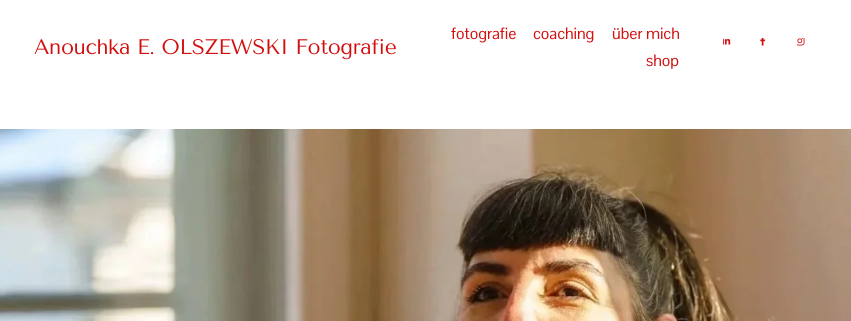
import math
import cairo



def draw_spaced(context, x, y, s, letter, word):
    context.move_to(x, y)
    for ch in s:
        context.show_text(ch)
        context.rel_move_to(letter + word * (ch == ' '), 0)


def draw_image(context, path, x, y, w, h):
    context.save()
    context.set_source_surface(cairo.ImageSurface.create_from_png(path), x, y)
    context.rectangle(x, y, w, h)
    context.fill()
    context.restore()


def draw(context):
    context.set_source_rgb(1, 1, 1)
    context.paint()
    draw_image(context, "images/1.png", 723, 38, 8, 7)
    draw_image(context, "images/2.png", 760, 38, 6, 8)
    draw_image(context, "images/3.png", 797, 38, 8, 8)
    draw_image(context, "images/4.png", 0, 129, 851, 192)
    context.select_font_face("Tenor Sans")
    context.set_font_size(21.1)
    context.set_source_rgb(211 / 255, 14 / 255, 14 / 255)
    draw_spaced(context, 34, 54, "Anouchka E. OLSZEWSKI Fotografie", -0.4, 0)
    context.select_font_face("Pontano Sans")
    context.set_font_size(16)
    context.move_to(451, 39)
    context.show_text("fotografie")
    context.move_to(533, 39)
    context.show_text("coaching")
    context.move_to(612, 39)
    context.show_text("über mich")
    context.move_to(646, 66)
    context.show_text("shop")


surface = cairo.ImageSurface(cairo.Format.RGB24, 851, 321)
context = cairo.Context(surface)
options = cairo.FontOptions()
options.set_hint_metrics(cairo.HintMetrics.OFF)
options.set_hint_style(cairo.HintStyle.NONE)
context.set_font_options(options)
context.set_miter_limit(4)
draw(context)
surface.write_to_png("out.png")
